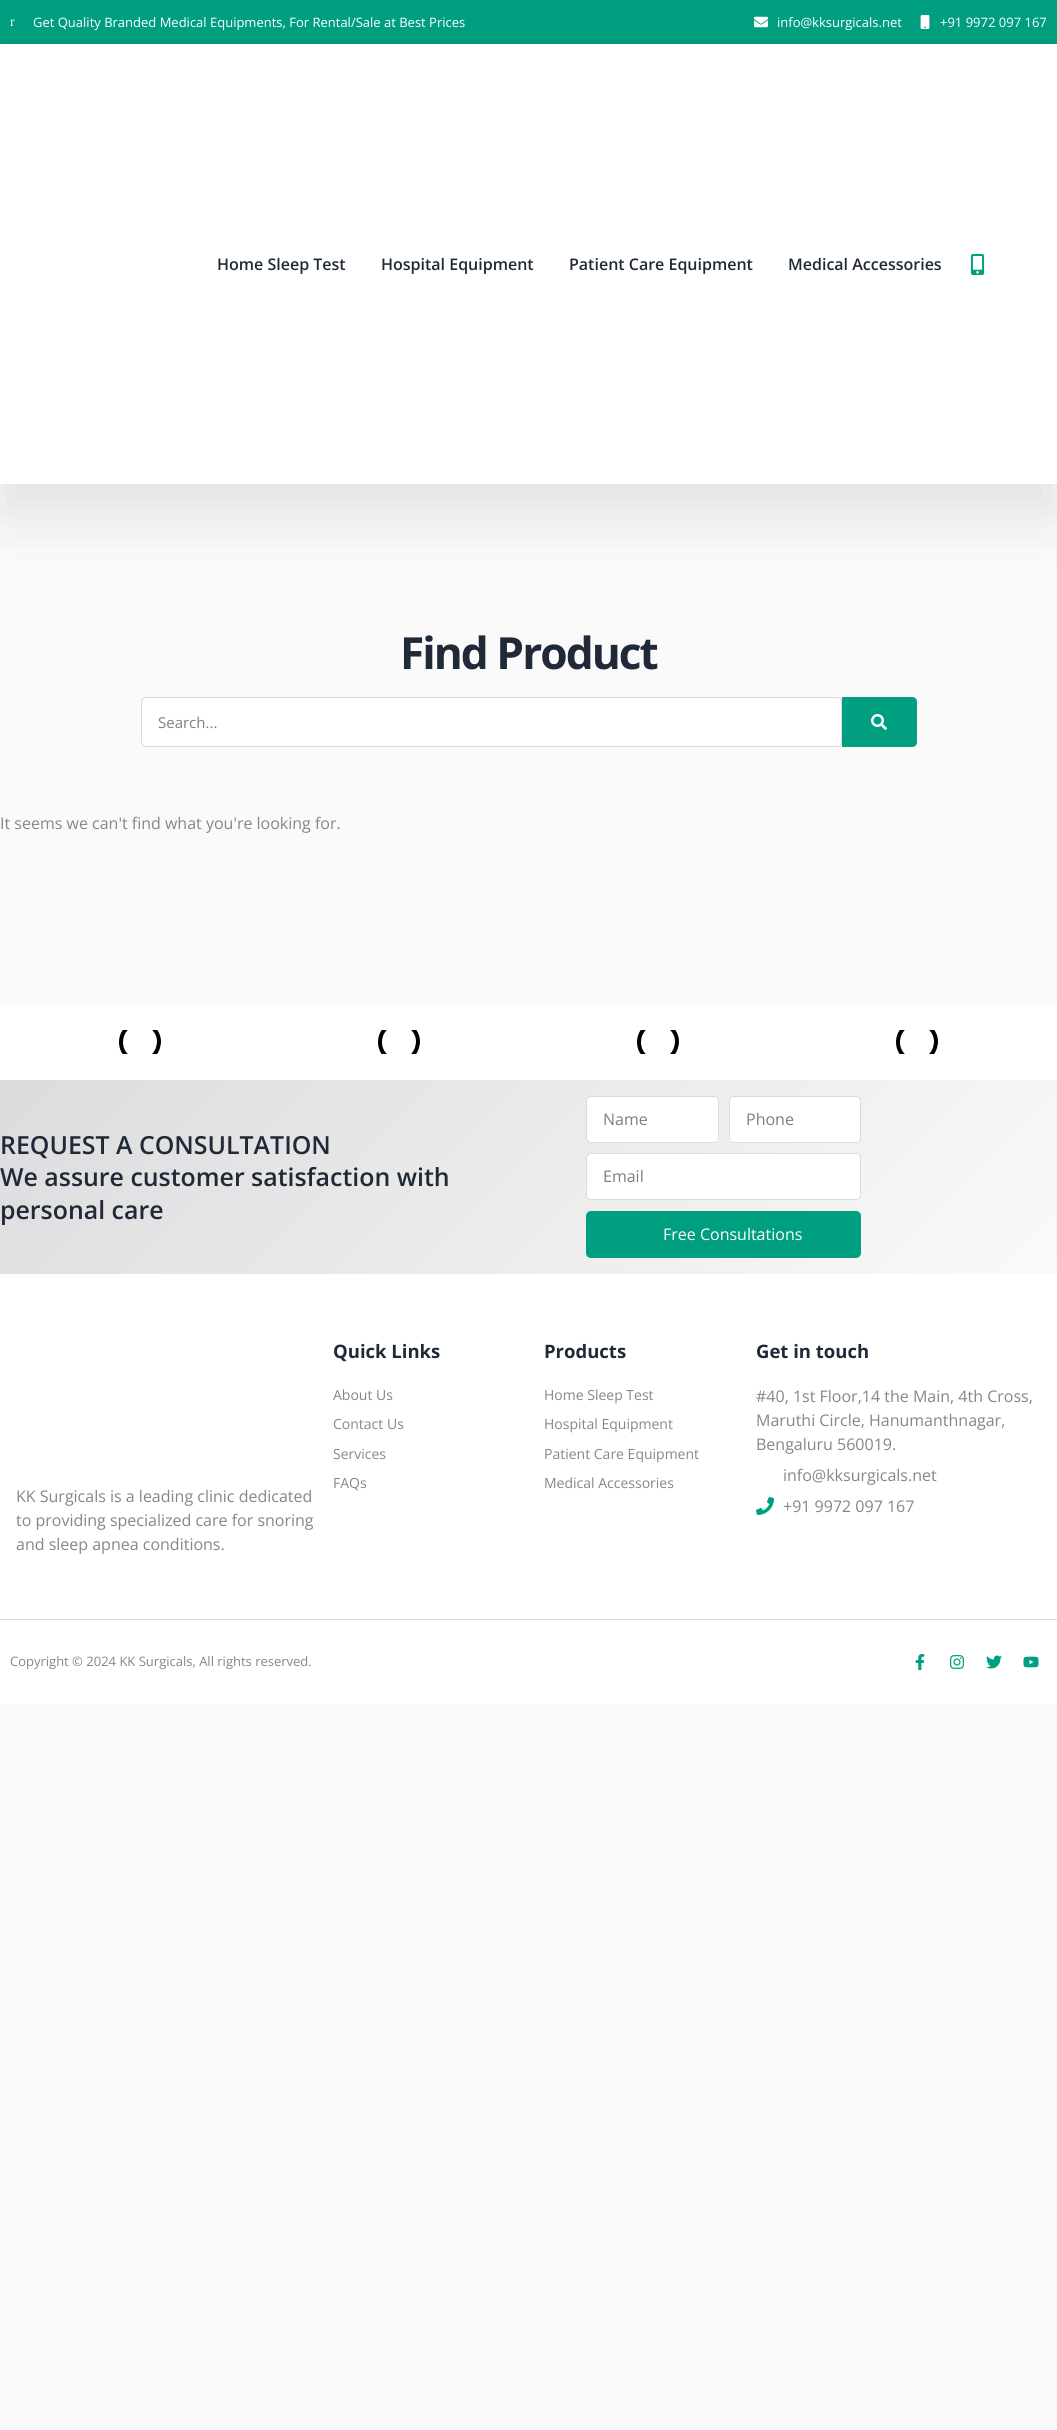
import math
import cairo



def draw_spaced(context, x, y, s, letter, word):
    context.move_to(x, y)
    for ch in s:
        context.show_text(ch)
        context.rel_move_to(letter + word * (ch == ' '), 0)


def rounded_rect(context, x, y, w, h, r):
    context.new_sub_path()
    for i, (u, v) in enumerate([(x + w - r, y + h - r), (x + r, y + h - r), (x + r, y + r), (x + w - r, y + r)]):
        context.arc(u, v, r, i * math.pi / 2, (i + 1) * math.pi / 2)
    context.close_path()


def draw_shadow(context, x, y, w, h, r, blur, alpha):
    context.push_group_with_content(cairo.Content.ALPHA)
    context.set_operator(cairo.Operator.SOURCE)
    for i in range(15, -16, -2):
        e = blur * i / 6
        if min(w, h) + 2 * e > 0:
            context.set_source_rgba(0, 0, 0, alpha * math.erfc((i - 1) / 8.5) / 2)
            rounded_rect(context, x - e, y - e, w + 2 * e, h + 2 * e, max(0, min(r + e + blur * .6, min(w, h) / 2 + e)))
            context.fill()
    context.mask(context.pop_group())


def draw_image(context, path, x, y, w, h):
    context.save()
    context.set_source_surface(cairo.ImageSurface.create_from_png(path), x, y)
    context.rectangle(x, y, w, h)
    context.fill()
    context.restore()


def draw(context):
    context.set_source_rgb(250 / 255, 250 / 255, 250 / 255)
    context.paint()
    context.set_source_rgb(0, 159 / 255, 127 / 255)
    context.rectangle(0, 0, 1057, 44)
    context.fill()
    draw_image(context, "images/1.png", 754, 16, 14, 12)
    draw_image(context, "images/2.png", 920, 15, 10, 14)
    context.set_source_rgb(0, 0, 0)
    draw_shadow(context, 0, 74, 1057, 440, 0, 30, 0.1)
    context.set_source_rgb(1, 1, 1)
    context.rectangle(0, 44, 1057, 440)
    context.fill()
    draw_image(context, "images/3.png", 970, 254, 15, 21)
    context.set_source_rgb(241 / 255, 242 / 255, 243 / 255)
    rounded_rect(context, 141, 697, 776, 50, 5)
    context.fill()
    context.set_source_rgb(1, 1, 1)
    rounded_rect(context, 141.5, 697.5, 700, 49, 4.5)
    context.fill_preserve()
    context.set_source_rgb(220 / 255, 220 / 255, 222 / 255)
    context.set_line_width(1)
    context.stroke()
    context.set_source_rgb(0, 159 / 255, 127 / 255)
    context.new_path()
    context.move_to(842, 697)
    context.line_to(912, 697)
    context.curve_to(915, 697, 917, 699, 917, 702)
    context.line_to(917, 742)
    context.curve_to(917, 745, 915, 747, 912, 747)
    context.line_to(842, 747)
    context.close_path()
    context.fill()
    draw_image(context, "images/4.png", 871, 714, 16, 16)
    context.set_source_rgb(1, 1, 1)
    context.rectangle(0, 1004, 1057, 76)
    context.fill()
    context.save()
    context.rectangle(10, 1030, 259, 24)
    context.clip()
    context.new_path()
    context.move_to(153.5, 1028.5)
    context.curve_to(158, 1033, 160, 1039.5, 158.5, 1045.5)
    context.curve_to(154, 1068, 121, 1064.5, 121, 1042)
    context.curve_to(121, 1037, 123, 1032, 126.5, 1028.5)
    context.set_source_rgb(0, 0, 0)
    context.set_line_width(4)
    context.stroke()
    context.restore()
    context.save()
    context.rectangle(269, 1030, 260, 24)
    context.clip()
    context.new_path()
    context.move_to(412.5, 1028.5)
    context.curve_to(417, 1033, 419, 1039.5, 417.5, 1045.5)
    context.curve_to(413, 1068, 380, 1064.5, 380, 1042)
    context.curve_to(380, 1037, 382, 1032, 385.5, 1028.5)
    context.set_source_rgb(0, 0, 0)
    context.set_line_width(4)
    context.stroke()
    context.restore()
    context.save()
    context.rectangle(529, 1030, 259, 24)
    context.clip()
    context.new_path()
    context.move_to(671.5, 1028.5)
    context.curve_to(676, 1033, 678, 1039.5, 676.5, 1045.5)
    context.curve_to(672, 1068, 639, 1064.5, 639, 1042)
    context.curve_to(639, 1037, 641, 1032, 644.5, 1028.5)
    context.set_source_rgb(0, 0, 0)
    context.set_line_width(4)
    context.stroke()
    context.restore()
    context.save()
    context.rectangle(788, 1030, 259, 24)
    context.clip()
    context.new_path()
    context.move_to(930.5, 1028.5)
    context.curve_to(935, 1033, 937, 1039.5, 935.5, 1045.5)
    context.curve_to(931, 1068, 898, 1064.5, 898, 1042)
    context.curve_to(898, 1037, 900, 1032, 903.5, 1028.5)
    context.set_source_rgb(0, 0, 0)
    context.set_line_width(4)
    context.stroke()
    context.restore()
    gradient = cairo.LinearGradient(216, 864, 841, 1490)
    gradient.add_color_stop_rgba(0, 220 / 255, 220 / 255, 222 / 255, 1)
    gradient.add_color_stop_rgba(1, 250 / 255, 250 / 255, 250 / 255, 1)
    context.set_source(gradient)
    context.rectangle(0, 1080, 1057, 194)
    context.fill()
    context.set_source_rgb(1, 1, 1)
    rounded_rect(context, 586.5, 1096.5, 132, 46, 4.5)
    context.fill_preserve()
    context.set_source_rgb(220 / 255, 220 / 255, 222 / 255)
    context.stroke()
    context.set_source_rgb(1, 1, 1)
    rounded_rect(context, 729.5, 1096.5, 131, 46, 4.5)
    context.fill_preserve()
    context.set_source_rgb(220 / 255, 220 / 255, 222 / 255)
    context.stroke()
    context.set_source_rgb(1, 1, 1)
    rounded_rect(context, 586.5, 1153.5, 274, 46, 4.5)
    context.fill_preserve()
    context.set_source_rgb(220 / 255, 220 / 255, 222 / 255)
    context.stroke()
    context.set_source_rgb(0, 159 / 255, 127 / 255)
    rounded_rect(context, 586, 1211, 275, 47, 5)
    context.fill()
    context.set_source_rgb(1, 1, 1)
    context.rectangle(0, 1274, 1057, 430)
    context.fill()
    context.set_source_rgb(220 / 255, 220 / 255, 222 / 255)
    context.rectangle(0, 1619, 1057, 1)
    context.fill()
    draw_image(context, "images/5.png", 756, 1497, 18, 18)
    draw_image(context, "images/6.png", 915, 1654, 10, 16)
    draw_image(context, "images/7.png", 950, 1655, 14, 14)
    draw_image(context, "images/8.png", 986, 1655, 16, 14)
    draw_image(context, "images/9.png", 1023, 1656, 16, 12)
    context.select_font_face("Liberation Serif")
    context.set_font_size(14)
    context.set_source_rgb(1, 1, 1)
    context.move_to(10, 26)
    context.show_text("r")
    context.select_font_face("Open Sans")
    context.set_font_size(13)
    context.move_to(33, 27)
    context.show_text("Get Quality Branded Medical Equipments, For Rental/Sale at Best Prices")
    context.move_to(777, 27)
    context.show_text("info@kksurgicals.net")
    context.move_to(940, 27)
    context.show_text("+91 9972 097 167")
    context.select_font_face("Open Sans SemiBold")
    context.set_font_size(16)
    context.set_source_rgb(31 / 255, 41 / 255, 55 / 255)
    context.move_to(217, 270)
    context.show_text("Home Sleep Test")
    context.move_to(381, 270)
    context.show_text("Hospital Equipment")
    context.move_to(569, 270)
    context.show_text("Patient Care Equipment")
    context.move_to(788, 270)
    context.show_text("Medical Accessories")
    context.select_font_face("Open Sans", cairo.FontSlant.NORMAL, cairo.FontWeight.BOLD)
    context.set_font_size(44.25)
    draw_spaced(context, 400, 669, "Find Product", -2, 0)
    context.select_font_face("Open Sans")
    context.set_font_size(15)
    context.set_source_rgb(121 / 255, 127 / 255, 135 / 255)
    context.move_to(158, 728)
    context.show_text("Search...")
    context.set_font_size(16)
    context.set_source_rgb(134 / 255, 134 / 255, 134 / 255)
    context.move_to(0, 829)
    context.show_text("It seems we can't find what you're looking for.")
    context.select_font_face("Open Sans SemiBold")
    context.set_font_size(24.9)
    context.set_source_rgb(31 / 255, 41 / 255, 55 / 255)
    context.move_to(0, 1154)
    context.show_text("REQUEST A CONSULTATION")
    context.move_to(0, 1186)
    context.show_text("We assure customer satisfaction with")
    context.move_to(0, 1219)
    context.show_text("personal care")
    context.select_font_face("Open Sans")
    context.set_font_size(16)
    context.set_source_rgb(121 / 255, 127 / 255, 135 / 255)
    context.move_to(603, 1125)
    context.show_text("Name")
    context.move_to(746, 1125)
    context.show_text("Phone")
    context.move_to(603, 1182)
    context.show_text("Email")
    context.set_source_rgb(1, 1, 1)
    context.move_to(663, 1240)
    context.show_text("Free Consultations")
    context.select_font_face("Open Sans", cairo.FontSlant.NORMAL, cairo.FontWeight.BOLD)
    context.set_font_size(18.5)
    context.set_source_rgb(31 / 255, 41 / 255, 55 / 255)
    context.move_to(333, 1358)
    context.show_text("Quick Links")
    context.select_font_face("Open Sans")
    context.set_font_size(14)
    context.set_source_rgb(134 / 255, 134 / 255, 134 / 255)
    context.move_to(333, 1400)
    context.show_text("About Us")
    context.move_to(333, 1429)
    context.show_text("Contact Us")
    context.move_to(333, 1459)
    context.show_text("Services")
    context.move_to(333, 1488)
    context.show_text("FAQs")
    context.select_font_face("Open Sans", cairo.FontSlant.NORMAL, cairo.FontWeight.BOLD)
    context.set_font_size(18.5)
    context.set_source_rgb(31 / 255, 41 / 255, 55 / 255)
    context.move_to(544, 1358)
    context.show_text("Products")
    context.select_font_face("Open Sans")
    context.set_font_size(14)
    context.set_source_rgb(134 / 255, 134 / 255, 134 / 255)
    context.move_to(544, 1400)
    context.show_text("Home Sleep Test")
    context.move_to(544, 1429)
    context.show_text("Hospital Equipment")
    context.move_to(544, 1459)
    context.show_text("Patient Care Equipment")
    context.move_to(544, 1488)
    context.show_text("Medical Accessories")
    context.select_font_face("Open Sans", cairo.FontSlant.NORMAL, cairo.FontWeight.BOLD)
    context.set_font_size(18.5)
    context.set_source_rgb(31 / 255, 41 / 255, 55 / 255)
    context.move_to(756, 1358)
    context.show_text("Get in touch")
    context.select_font_face("Open Sans")
    context.set_font_size(16)
    context.set_source_rgb(134 / 255, 134 / 255, 134 / 255)
    context.move_to(756, 1402)
    context.show_text("#40, 1st Floor,14 the Main, 4th Cross,")
    context.move_to(756, 1426)
    context.show_text("Maruthi Circle, Hanumanthnagar,")
    context.move_to(756, 1450)
    context.show_text("Bengaluru 560019.")
    context.move_to(783, 1481)
    context.show_text("info@kksurgicals.net")
    context.move_to(783, 1512)
    context.show_text("+91 9972 097 167")
    context.move_to(16, 1502)
    context.show_text("KK Surgicals is a leading clinic dedicated")
    context.move_to(16, 1526)
    context.show_text("to providing specialized care for snoring")
    context.move_to(16, 1550)
    context.show_text("and sleep apnea conditions.")
    context.set_font_size(13)
    context.move_to(10, 1666)
    context.show_text("Copyright © 2024 KK Surgicals, All rights reserved.")


surface = cairo.ImageSurface(cairo.Format.RGB24, 1057, 2430)
context = cairo.Context(surface)
options = cairo.FontOptions()
options.set_hint_metrics(cairo.HintMetrics.OFF)
options.set_hint_style(cairo.HintStyle.NONE)
context.set_font_options(options)
context.set_miter_limit(4)
draw(context)
surface.write_to_png("out.png")
